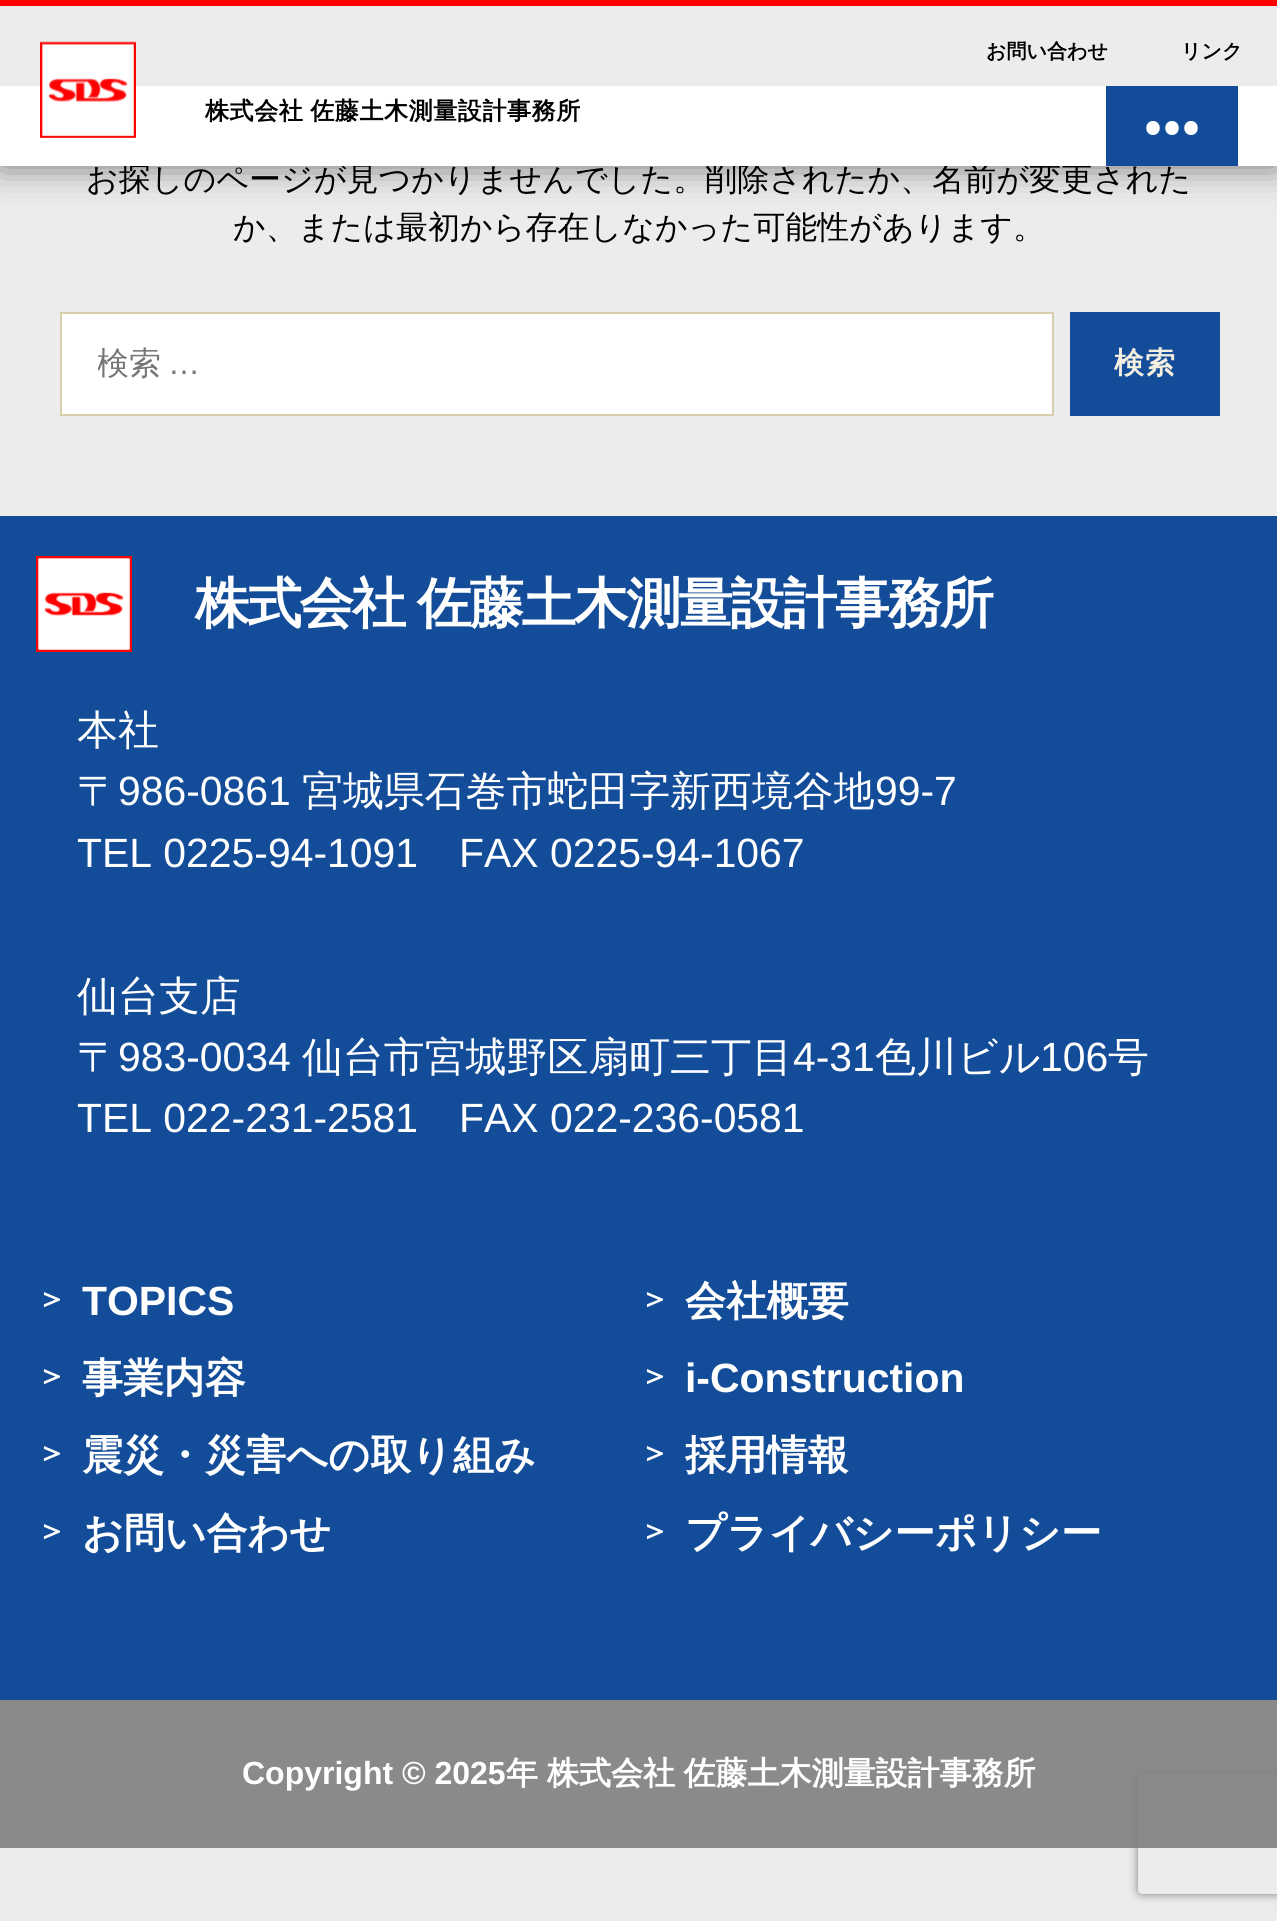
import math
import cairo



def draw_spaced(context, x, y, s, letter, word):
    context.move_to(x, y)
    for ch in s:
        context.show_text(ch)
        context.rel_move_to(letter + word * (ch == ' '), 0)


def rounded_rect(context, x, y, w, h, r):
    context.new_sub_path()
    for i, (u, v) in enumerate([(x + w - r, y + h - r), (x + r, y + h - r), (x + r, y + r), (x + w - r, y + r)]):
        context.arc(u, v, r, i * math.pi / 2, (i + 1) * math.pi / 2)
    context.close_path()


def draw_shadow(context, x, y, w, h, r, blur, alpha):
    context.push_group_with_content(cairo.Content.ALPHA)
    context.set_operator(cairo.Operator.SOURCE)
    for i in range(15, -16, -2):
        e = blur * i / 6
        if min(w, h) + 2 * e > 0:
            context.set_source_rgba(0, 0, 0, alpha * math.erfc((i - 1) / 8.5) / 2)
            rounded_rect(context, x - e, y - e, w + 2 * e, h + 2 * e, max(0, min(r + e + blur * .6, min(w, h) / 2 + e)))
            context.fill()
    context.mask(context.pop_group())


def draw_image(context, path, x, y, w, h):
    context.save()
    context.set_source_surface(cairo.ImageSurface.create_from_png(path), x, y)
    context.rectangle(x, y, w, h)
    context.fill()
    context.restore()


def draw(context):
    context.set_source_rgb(236 / 255, 236 / 255, 236 / 255)
    context.paint()
    context.set_source_rgb(0, 0, 0)
    draw_shadow(context, 0, 0, 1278, 166, 0, 18, 0.52)
    context.set_source_rgb(1, 0, 0)
    context.rectangle(0, 0, 1277, 6)
    context.fill()
    context.set_source_rgb(236 / 255, 236 / 255, 236 / 255)
    context.rectangle(0, 6, 1277, 80)
    context.fill()
    context.set_source_rgb(1, 1, 1)
    context.rectangle(61, 313, 992, 102)
    context.fill_preserve()
    context.set_source_rgb(215 / 255, 207 / 255, 171 / 255)
    context.stroke()
    context.set_source_rgb(19 / 255, 77 / 255, 153 / 255)
    context.rectangle(1070, 312, 150, 104)
    context.fill()
    context.rectangle(0, 516, 1277, 1184)
    context.fill()
    draw_image(context, "images/2.png", 36, 556, 96, 96)
    context.set_source_rgb(138 / 255, 138 / 255, 138 / 255)
    context.rectangle(0, 1700, 1277, 148)
    context.fill()
    context.save()
    context.set_fill_rule(cairo.FillRule.EVEN_ODD)
    context.new_path()
    context.move_to(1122, 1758)
    context.line_to(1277, 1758)
    context.line_to(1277, 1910)
    context.line_to(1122, 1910)
    context.close_path()
    context.move_to(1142, 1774)
    context.line_to(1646, 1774)
    context.curve_to(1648, 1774, 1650, 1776, 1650, 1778)
    context.line_to(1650, 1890)
    context.curve_to(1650, 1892, 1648, 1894, 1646, 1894)
    context.line_to(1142, 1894)
    context.curve_to(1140, 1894, 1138, 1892, 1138, 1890)
    context.line_to(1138, 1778)
    context.curve_to(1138, 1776, 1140, 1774, 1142, 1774)
    context.close_path()
    context.clip()
    context.set_source_rgb(128 / 255, 128 / 255, 128 / 255)
    draw_shadow(context, 1138, 1774, 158, 120, 4, 5, 1)
    context.restore()
    context.select_font_face("WenQuanYi Zen Hei", cairo.FontSlant.NORMAL, cairo.FontWeight.BOLD)
    context.set_font_size(20)
    context.set_source_rgb(0, 0, 0)
    context.move_to(986, 58)
    context.show_text("お問い合わせ")
    context.move_to(1181, 58)
    context.show_text("リンク")
    context.select_font_face("WenQuanYi Zen Hei Medium")
    context.set_font_size(32)
    context.move_to(86, 190)
    context.show_text("お探しのページが見つかりませんでした。削除されたか、名前が変更された")
    context.set_source_rgb(1, 1, 1)
    context.rectangle(0, 86, 1277, 80)
    context.fill()
    context.set_source_rgb(19 / 255, 77 / 255, 153 / 255)
    context.rectangle(1106, 86, 132, 80)
    context.fill()
    context.set_source_rgb(1, 1, 1)
    context.set_fill_rule(cairo.FillRule.EVEN_ODD)
    context.new_path()
    context.move_to(1153, 135)
    context.curve_to(1144, 135, 1144, 121, 1153, 121)
    context.curve_to(1162, 121, 1162, 135, 1153, 135)
    context.close_path()
    context.move_to(1172, 135)
    context.curve_to(1163, 135, 1163, 121, 1172, 121)
    context.curve_to(1181, 121, 1181, 135, 1172, 135)
    context.close_path()
    context.move_to(1191, 135)
    context.curve_to(1182, 135, 1182, 121, 1191, 121)
    context.curve_to(1200, 121, 1200, 135, 1191, 135)
    context.close_path()
    context.fill()
    context.select_font_face("WenQuanYi Zen Hei", cairo.FontSlant.NORMAL, cairo.FontWeight.BOLD)
    context.set_font_size(24)
    context.set_source_rgb(0, 0, 0)
    draw_spaced(context, 205, 119, "株式会社 佐藤土木測量設計事務所", 0.6, -1)
    draw_image(context, "images/1.png", 40, 41, 96, 97)
    context.select_font_face("WenQuanYi Zen Hei Medium")
    context.set_font_size(32)
    context.move_to(233, 238)
    context.show_text("か、または最初から存在しなかった可能性があります。")
    context.save()
    context.set_fill_rule(cairo.FillRule.WINDING)
    context.rectangle(98, 344, 918, 42)
    context.clip()
    context.set_source_rgb(117 / 255, 117 / 255, 117 / 255)
    context.move_to(97, 374)
    context.show_text("検索")
    context.restore()
    context.select_font_face("Liberation Sans")
    context.set_source_rgb(117 / 255, 117 / 255, 117 / 255)
    context.move_to(168, 374)
    context.show_text("…")
    context.select_font_face("WenQuanYi Zen Hei", cairo.FontSlant.NORMAL, cairo.FontWeight.BOLD)
    context.set_font_size(30)
    context.set_source_rgb(245 / 255, 239 / 255, 224 / 255)
    draw_spaced(context, 1114, 373, "検索", 1, 0)
    context.set_font_size(54.5)
    context.set_source_rgb(1, 1, 1)
    draw_spaced(context, 195, 622, "株式会社 佐藤土木測量設計事務所", -2.25, -1)
    context.select_font_face("WenQuanYi Zen Hei Medium")
    context.set_font_size(40.9)
    context.move_to(77, 744)
    context.show_text("本社")
    context.move_to(77, 805)
    context.show_text("〒")
    context.select_font_face("Liberation Sans")
    context.move_to(118, 805)
    context.show_text("986-0861")
    context.select_font_face("WenQuanYi Zen Hei Medium")
    context.move_to(302, 805)
    context.show_text("宮城県石巻市蛇田字新西境谷地")
    context.select_font_face("Liberation Sans")
    context.move_to(875, 805)
    context.show_text("99-7")
    context.move_to(77, 867)
    context.show_text("TEL 0225-94-1091")
    context.move_to(459, 867)
    context.show_text("FAX 0225-94-1067")
    context.select_font_face("WenQuanYi Zen Hei Medium")
    context.move_to(77, 1010)
    context.show_text("仙台支店")
    context.move_to(77, 1071)
    context.show_text("〒")
    context.select_font_face("Liberation Sans")
    context.move_to(118, 1071)
    context.show_text("983-0034")
    context.select_font_face("WenQuanYi Zen Hei Medium")
    context.move_to(302, 1071)
    context.show_text("仙台市宮城野区扇町三丁目")
    context.select_font_face("Liberation Sans")
    context.move_to(793, 1071)
    context.show_text("4-31")
    context.select_font_face("WenQuanYi Zen Hei Medium")
    context.move_to(875, 1071)
    context.show_text("色川ビル")
    context.select_font_face("Liberation Sans")
    context.move_to(1040, 1071)
    context.show_text("106")
    context.select_font_face("WenQuanYi Zen Hei Medium")
    context.move_to(1108, 1071)
    context.show_text("号")
    context.select_font_face("Liberation Sans")
    context.move_to(77, 1132)
    context.show_text("TEL 022-231-2581")
    context.move_to(459, 1132)
    context.show_text("FAX 022-236-0581")
    context.select_font_face("WenQuanYi Zen Hei", cairo.FontSlant.NORMAL, cairo.FontWeight.BOLD)
    context.set_font_size(31)
    context.move_to(36, 1309)
    context.show_text("＞")
    context.select_font_face("Liberation Sans", cairo.FontSlant.NORMAL, cairo.FontWeight.BOLD)
    context.set_font_size(40.9)
    context.move_to(82, 1315)
    context.show_text("TOPICS")
    context.select_font_face("WenQuanYi Zen Hei", cairo.FontSlant.NORMAL, cairo.FontWeight.BOLD)
    context.set_font_size(31)
    context.move_to(639, 1309)
    context.show_text("＞")
    context.set_font_size(40.9)
    context.move_to(685, 1315)
    context.show_text("会社概要")
    context.set_font_size(31)
    context.move_to(36, 1386)
    context.show_text("＞")
    context.set_font_size(40.9)
    context.move_to(82, 1392)
    context.show_text("事業内容")
    context.set_font_size(31)
    context.move_to(639, 1386)
    context.show_text("＞")
    context.select_font_face("Liberation Sans", cairo.FontSlant.NORMAL, cairo.FontWeight.BOLD)
    context.set_font_size(40.9)
    context.move_to(685, 1392)
    context.show_text("i-Construction")
    context.select_font_face("WenQuanYi Zen Hei", cairo.FontSlant.NORMAL, cairo.FontWeight.BOLD)
    context.set_font_size(31)
    context.move_to(36, 1463)
    context.show_text("＞")
    context.set_font_size(40.9)
    context.move_to(82, 1469)
    context.show_text("震災・災害への取り組み")
    context.set_font_size(31)
    context.move_to(639, 1463)
    context.show_text("＞")
    context.set_font_size(40.9)
    context.move_to(685, 1469)
    context.show_text("採用情報")
    context.set_font_size(31)
    context.move_to(36, 1541)
    context.show_text("＞")
    context.set_font_size(40.9)
    context.move_to(82, 1547)
    context.show_text("お問い合わせ")
    context.set_font_size(31)
    context.move_to(639, 1541)
    context.show_text("＞")
    context.set_font_size(40.9)
    context.move_to(685, 1547)
    context.show_text("プライバシーポリシー")
    context.select_font_face("Liberation Sans", cairo.FontSlant.NORMAL, cairo.FontWeight.BOLD)
    context.set_font_size(32)
    context.move_to(242, 1784)
    context.show_text("Copyright © 2025")
    context.select_font_face("WenQuanYi Zen Hei", cairo.FontSlant.NORMAL, cairo.FontWeight.BOLD)
    context.move_to(506, 1784)
    context.show_text("年")
    draw_spaced(context, 547, 1784, "株式会社 佐藤土木測量設計事務所", 0, -1)


surface = cairo.ImageSurface(cairo.Format.RGB24, 1277, 1921)
context = cairo.Context(surface)
options = cairo.FontOptions()
options.set_hint_metrics(cairo.HintMetrics.OFF)
options.set_hint_style(cairo.HintStyle.NONE)
context.set_font_options(options)
context.set_miter_limit(4)
draw(context)
surface.write_to_png("out.png")
